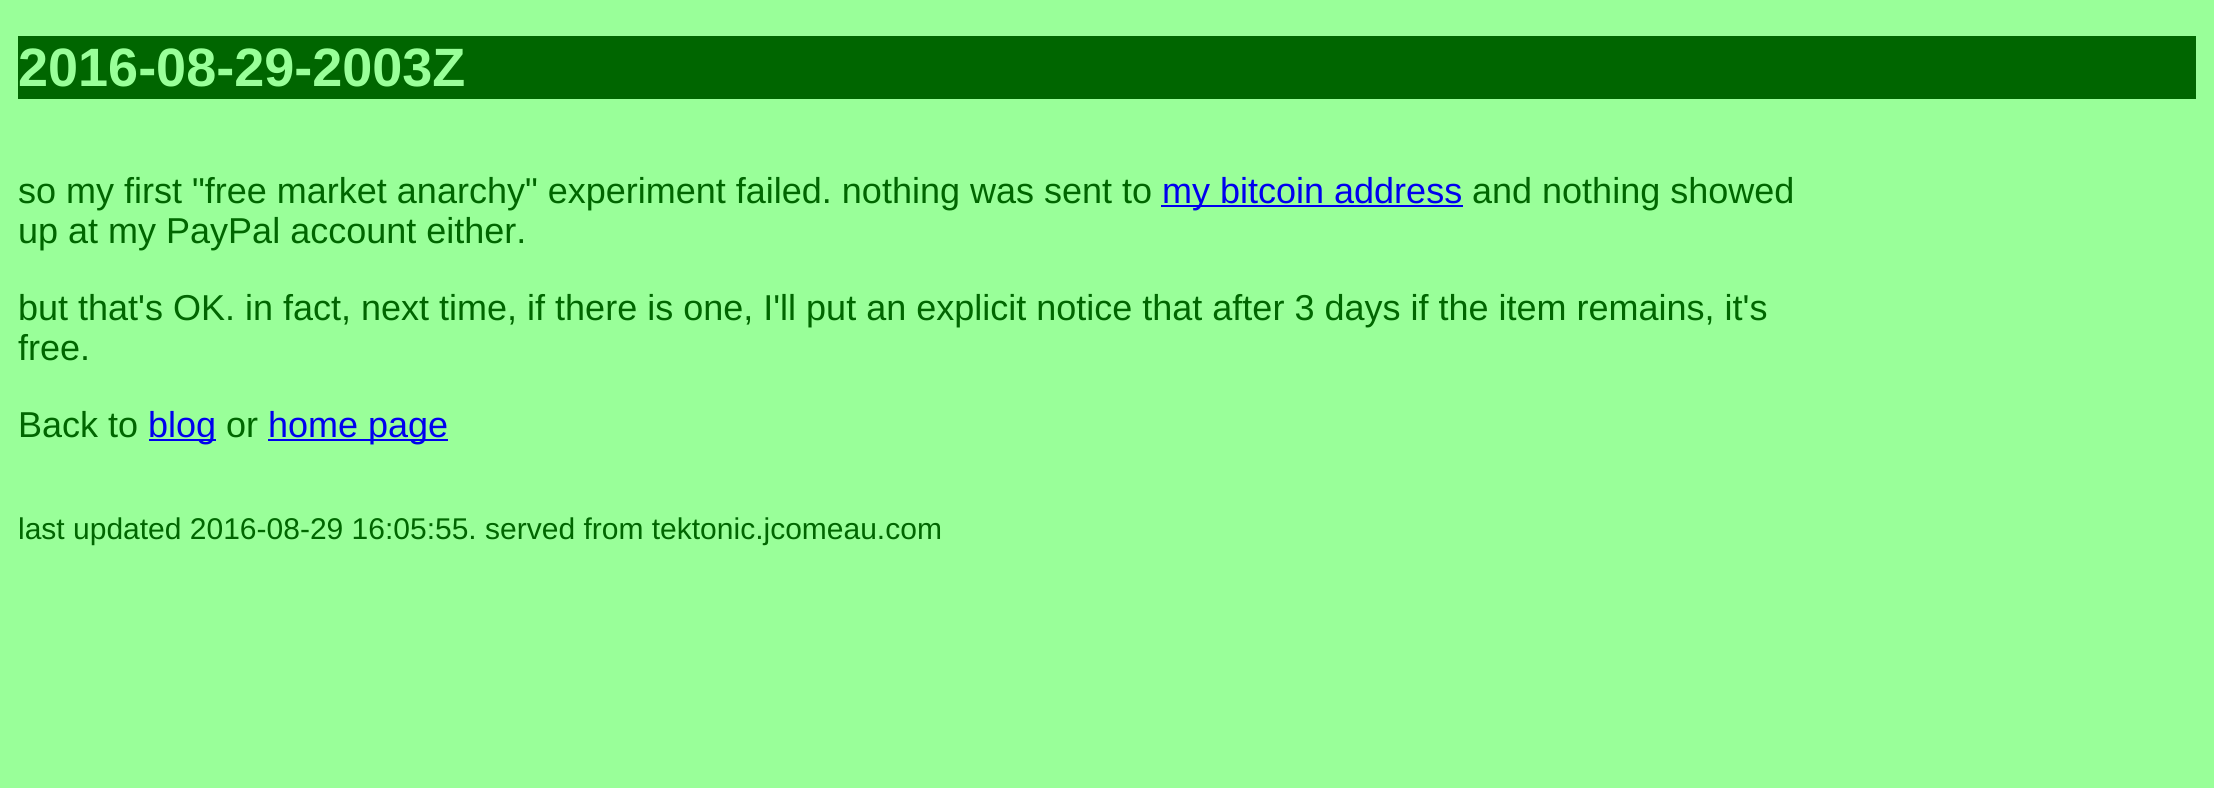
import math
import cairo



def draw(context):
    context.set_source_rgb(153 / 255, 1, 153 / 255)
    context.paint()
    context.set_source_rgb(0, 102 / 255, 0)
    context.rectangle(18, 36, 2178, 63)
    context.fill()
    context.set_source_rgb(0, 0, 238 / 255)
    context.rectangle(1161, 205, 302, 2)
    context.fill()
    context.rectangle(149, 439, 67, 2)
    context.fill()
    context.rectangle(268, 439, 180, 2)
    context.fill()
    context.select_font_face("Liberation Sans", cairo.FontSlant.NORMAL, cairo.FontWeight.BOLD)
    context.set_font_size(54)
    context.set_source_rgb(153 / 255, 1, 153 / 255)
    context.move_to(18, 86)
    context.show_text("2016-08-29-2003Z")
    context.select_font_face("Liberation Sans")
    context.set_font_size(36)
    context.set_source_rgb(0, 102 / 255, 0)
    context.move_to(18, 203)
    context.show_text("so my first \"free market anarchy\" experiment failed. nothing was sent to")
    context.set_source_rgb(0, 0, 238 / 255)
    context.move_to(1162, 203)
    context.show_text("my bitcoin address")
    context.set_source_rgb(0, 102 / 255, 0)
    context.move_to(1472, 203)
    context.show_text("and nothing showed")
    context.move_to(18, 243)
    context.show_text("up at my PayPal account either.")
    context.move_to(18, 320)
    context.show_text("but that's OK. in fact, next time, if there is one, I'll put an explicit notice that after 3 days if the item remains, it's")
    context.move_to(18, 360)
    context.show_text("free.")
    context.move_to(18, 437)
    context.show_text("Back to")
    context.set_source_rgb(0, 0, 238 / 255)
    context.move_to(148, 437)
    context.show_text("blog")
    context.set_source_rgb(0, 102 / 255, 0)
    context.move_to(226, 437)
    context.show_text("or")
    context.set_source_rgb(0, 0, 238 / 255)
    context.move_to(268, 437)
    context.show_text("home page")
    context.set_font_size(30)
    context.set_source_rgb(0, 102 / 255, 0)
    context.move_to(18, 539)
    context.show_text("last updated 2016-08-29 16:05:55. served from tektonic.jcomeau.com")


surface = cairo.ImageSurface(cairo.Format.RGB24, 2214, 788)
context = cairo.Context(surface)
options = cairo.FontOptions()
options.set_hint_metrics(cairo.HintMetrics.OFF)
options.set_hint_style(cairo.HintStyle.NONE)
context.set_font_options(options)
context.set_miter_limit(4)
draw(context)
surface.write_to_png("out.png")
